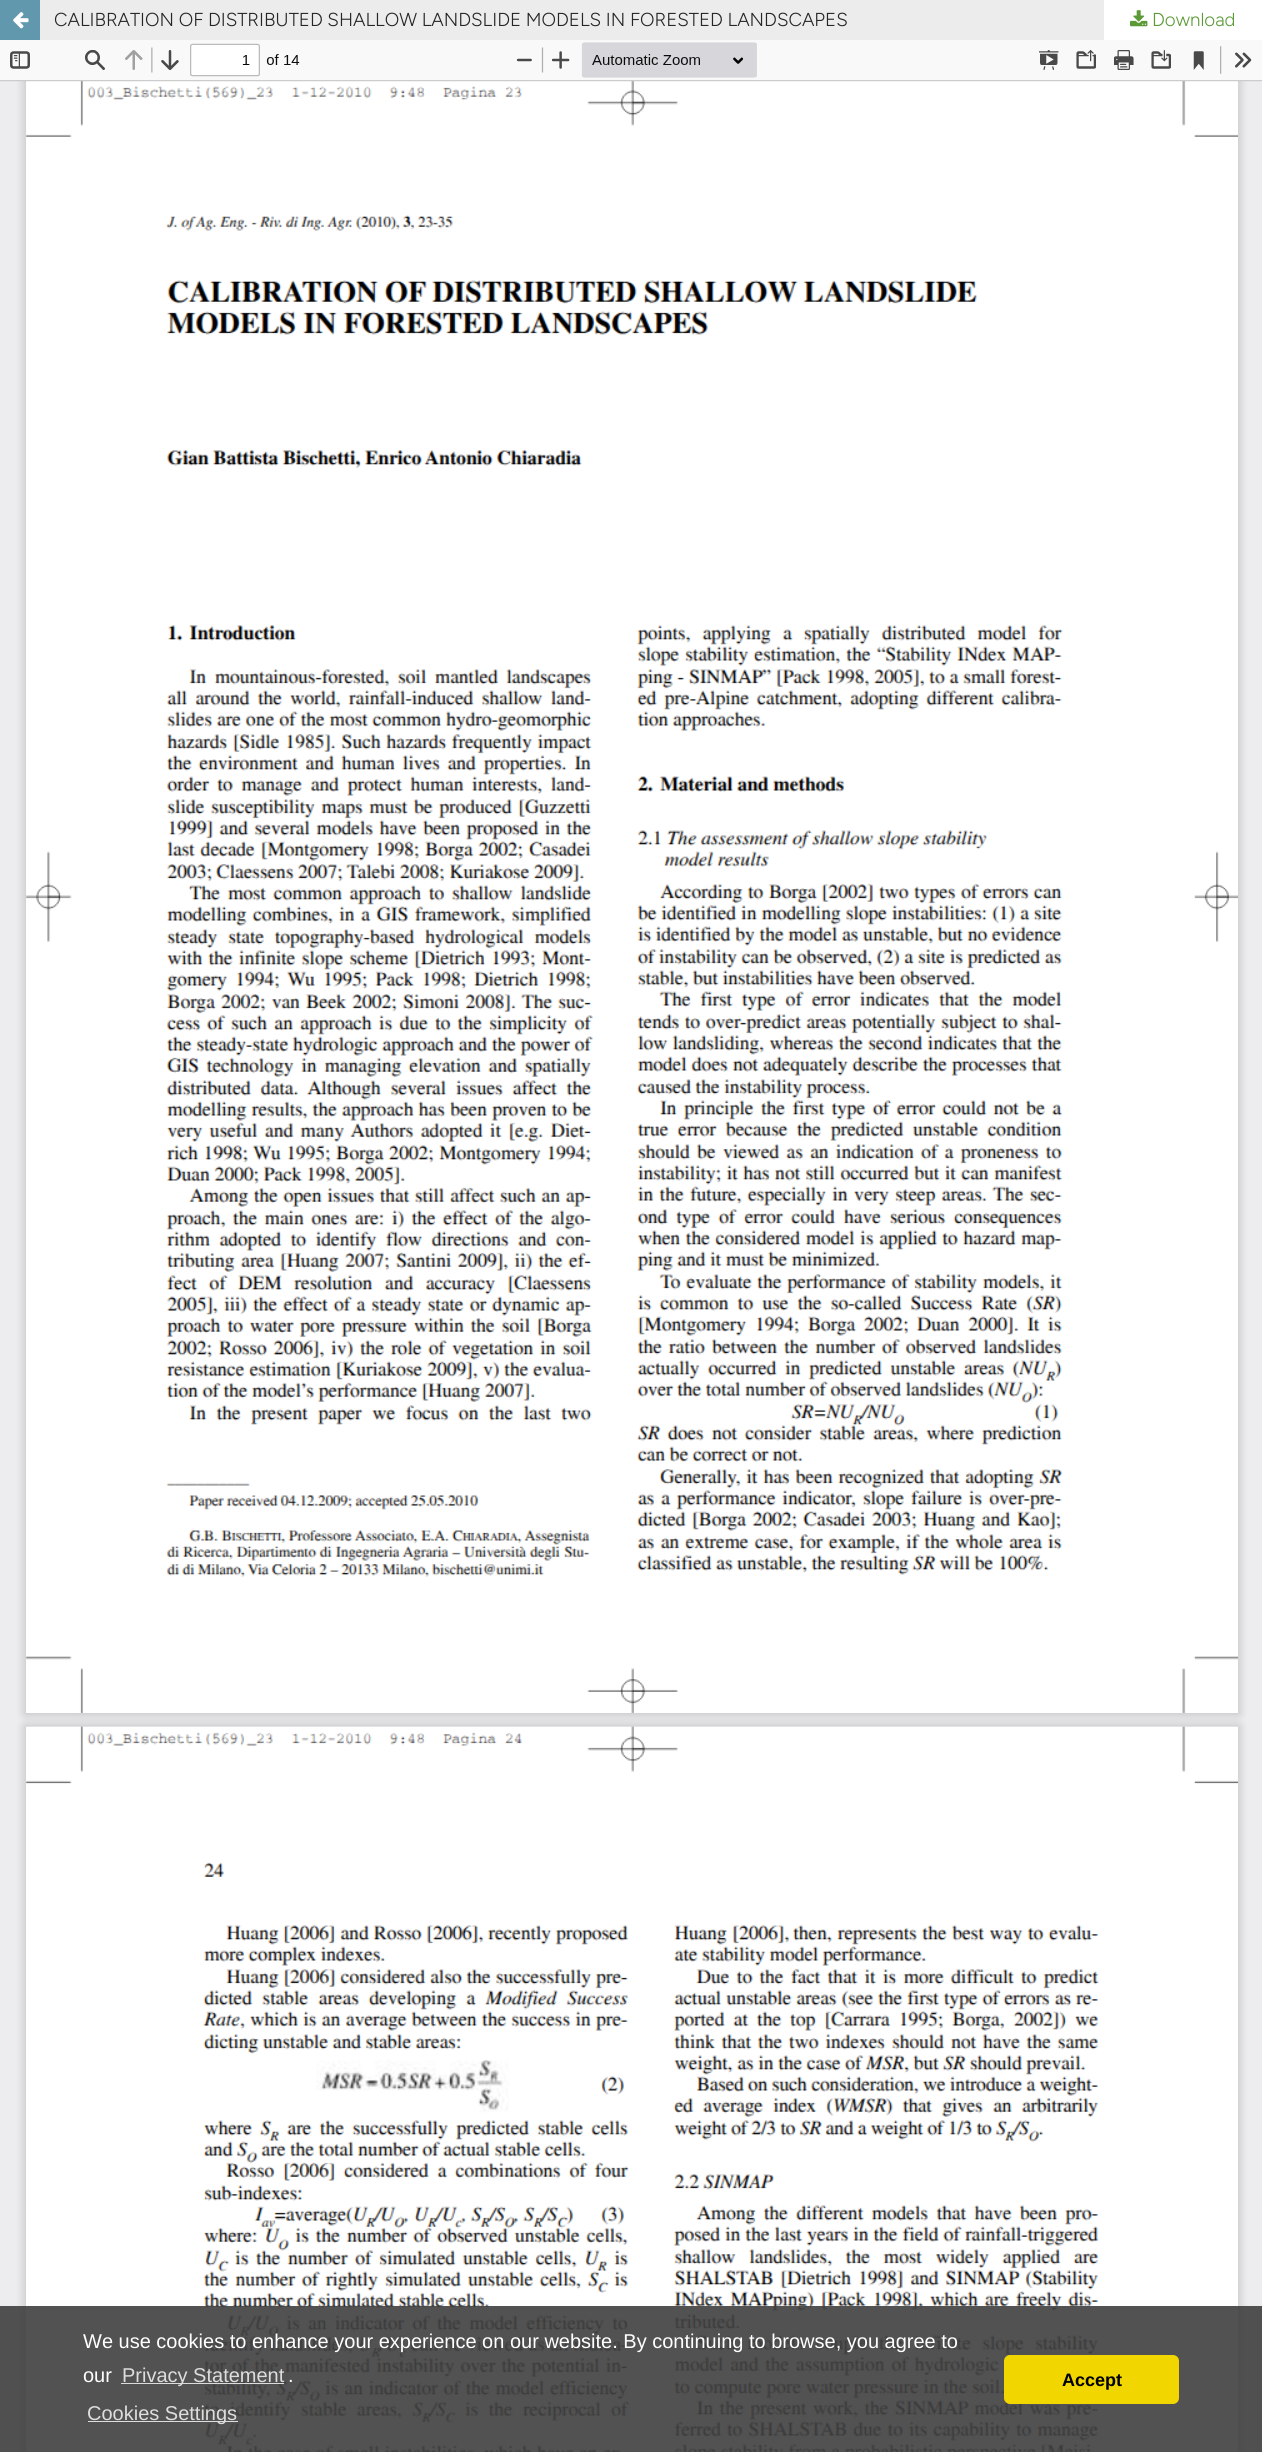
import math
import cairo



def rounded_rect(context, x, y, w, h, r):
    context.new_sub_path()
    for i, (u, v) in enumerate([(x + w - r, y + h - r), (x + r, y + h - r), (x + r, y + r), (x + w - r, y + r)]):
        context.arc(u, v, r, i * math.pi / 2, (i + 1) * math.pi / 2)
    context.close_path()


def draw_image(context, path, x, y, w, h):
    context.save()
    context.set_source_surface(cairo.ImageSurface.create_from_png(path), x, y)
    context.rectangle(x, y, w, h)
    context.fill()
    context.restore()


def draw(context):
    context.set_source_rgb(1, 1, 1)
    context.paint()
    context.set_source_rgb(236 / 255, 236 / 255, 236 / 255)
    context.rectangle(40, 0, 1064, 40)
    context.fill()
    context.set_source_rgb(98 / 255, 152 / 255, 174 / 255)
    context.rectangle(0, 0, 40, 40)
    context.fill()
    draw_image(context, "images/1.png", 13, 12, 16, 17)
    draw_image(context, "images/2.png", 1130, 10, 18, 17)
    draw_image(context, "images/3.png", 0, 40, 1262, 2412)
    context.set_source_rgba(64 / 255, 64 / 255, 64 / 255, 0.9)
    context.rectangle(0, 2306, 1262, 146)
    context.fill()
    context.set_source_rgba(1, 1, 1, 0.8)
    context.rectangle(121, 2383, 163, 1)
    context.fill()
    context.set_source_rgb(221 / 255, 221 / 255, 221 / 255)
    context.rectangle(88, 2421, 150, 1)
    context.fill()
    context.set_source_rgb(241 / 255, 214 / 255, 0)
    rounded_rect(context, 1004, 2355, 175, 49, 6)
    context.fill()
    context.select_font_face("Figtree Light")
    context.set_font_size(18.75)
    context.set_source_rgb(38 / 255, 38 / 255, 38 / 255)
    context.move_to(54, 26)
    context.show_text("CALIBRATION OF DISTRIBUTED SHALLOW LANDSLIDE MODELS IN FORESTED LANDSCAPES")
    context.set_source_rgb(91 / 255, 154 / 255, 54 / 255)
    context.move_to(1152, 26)
    context.show_text("Download")
    context.select_font_face("Liberation Sans")
    context.set_font_size(20)
    context.set_source_rgb(1, 1, 1)
    context.move_to(83, 2348)
    context.show_text("We use cookies to enhance your experience on our website. By continuing to browse, you agree to")
    context.move_to(83, 2382)
    context.show_text("our")
    context.set_source_rgb(221 / 255, 221 / 255, 221 / 255)
    context.move_to(122, 2382)
    context.show_text("Privacy Statement")
    context.set_source_rgb(1, 1, 1)
    context.move_to(288, 2382)
    context.show_text(".")
    context.set_source_rgb(221 / 255, 221 / 255, 221 / 255)
    context.move_to(87, 2420)
    context.show_text("Cookies Settings")
    context.select_font_face("Liberation Sans", cairo.FontSlant.NORMAL, cairo.FontWeight.BOLD)
    context.set_font_size(18)
    context.set_source_rgb(0, 0, 0)
    context.move_to(1062, 2386)
    context.show_text("Accept")


surface = cairo.ImageSurface(cairo.Format.RGB24, 1262, 2452)
context = cairo.Context(surface)
options = cairo.FontOptions()
options.set_hint_metrics(cairo.HintMetrics.OFF)
options.set_hint_style(cairo.HintStyle.NONE)
context.set_font_options(options)
context.set_miter_limit(4)
draw(context)
surface.write_to_png("out.png")
